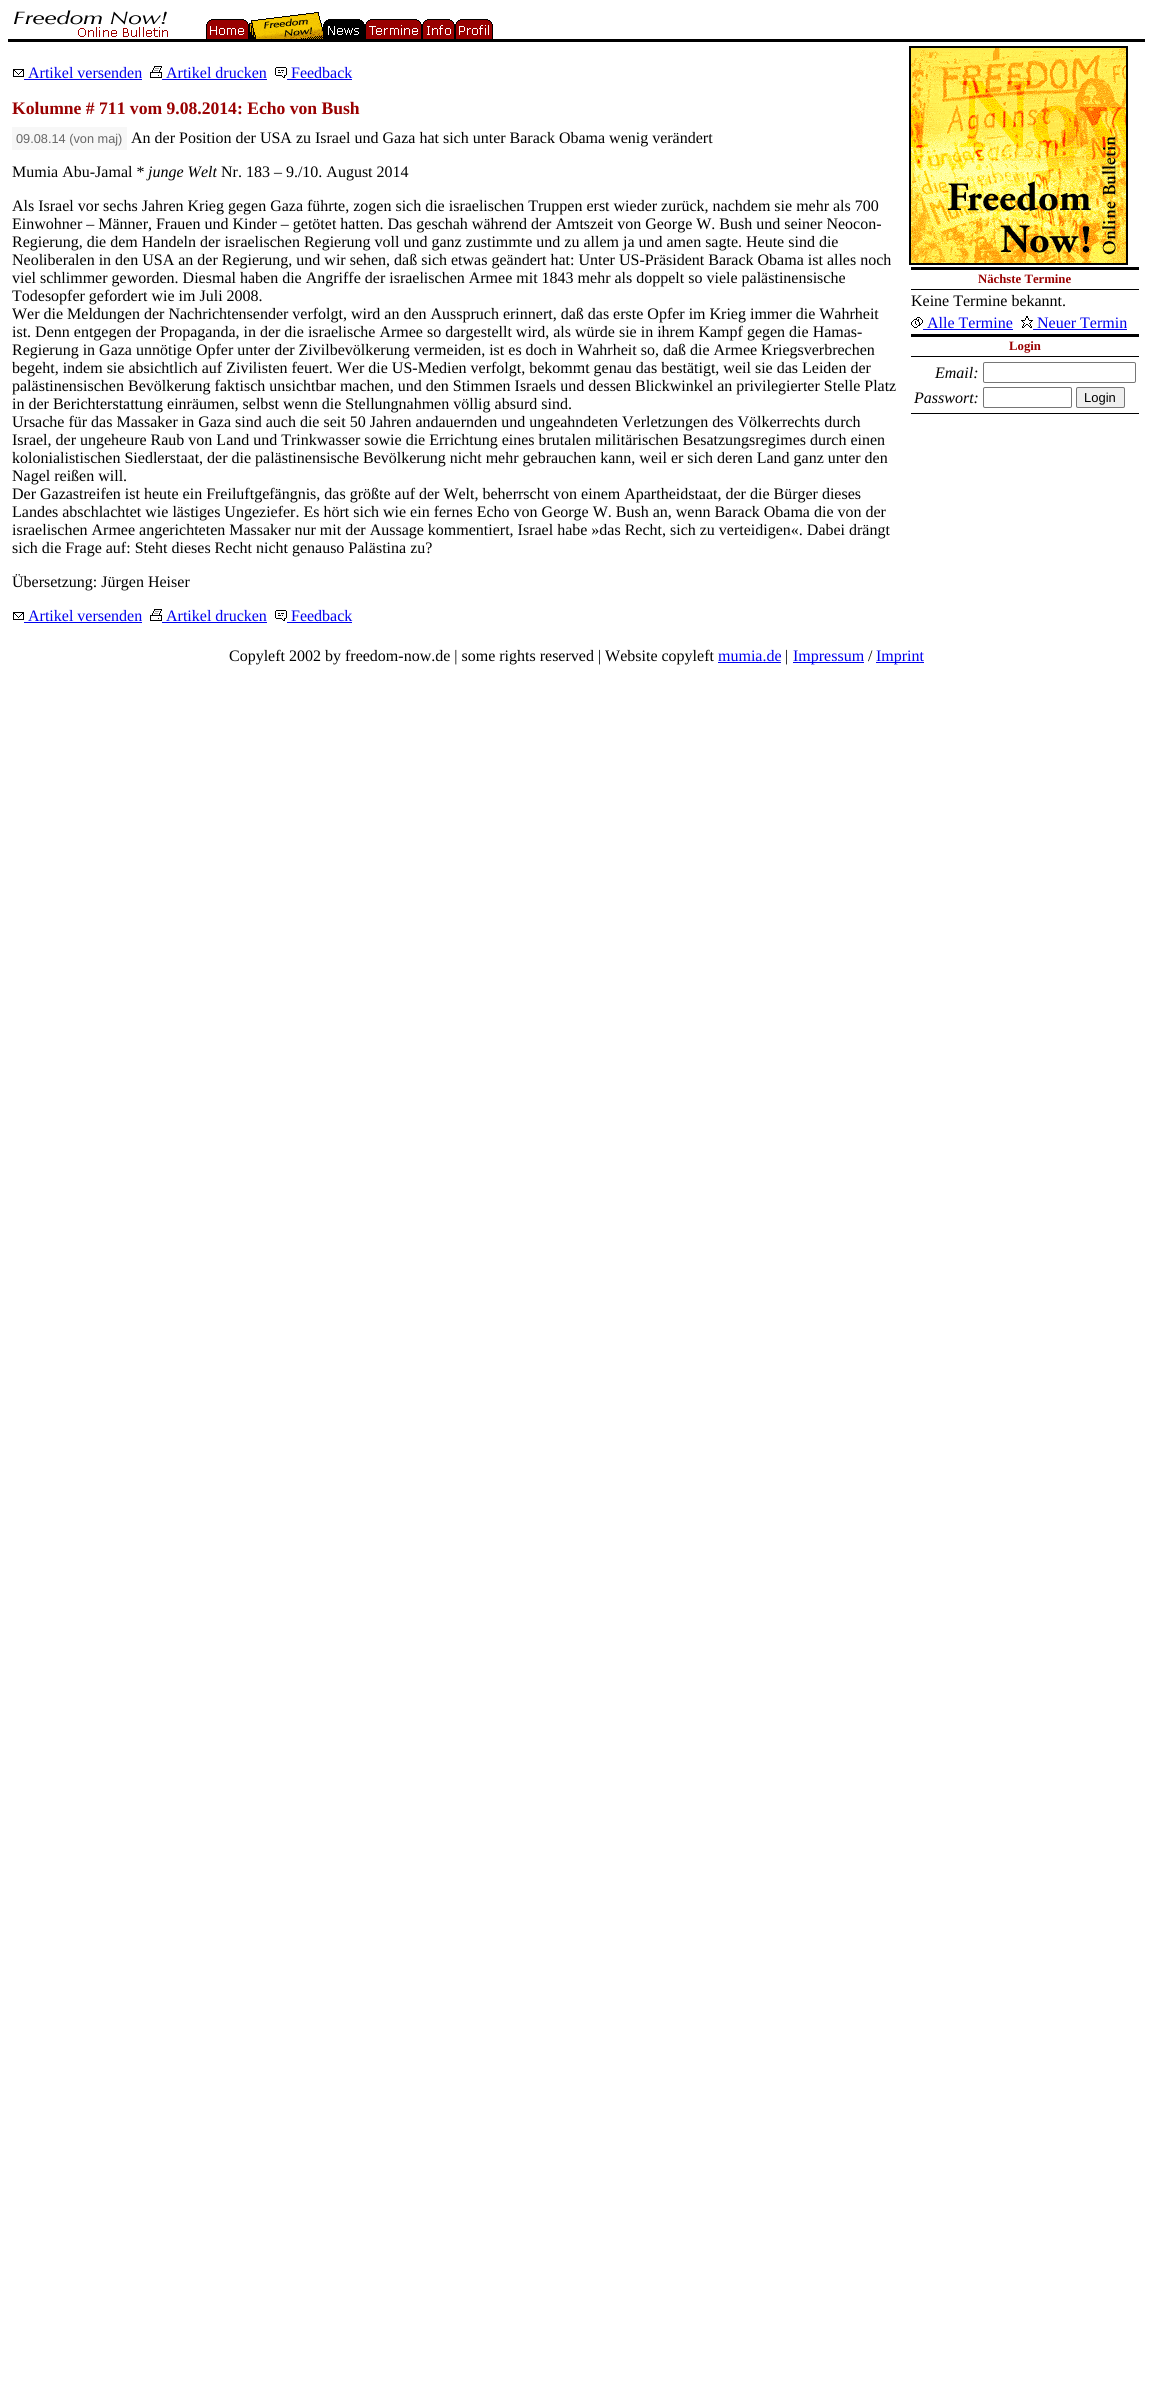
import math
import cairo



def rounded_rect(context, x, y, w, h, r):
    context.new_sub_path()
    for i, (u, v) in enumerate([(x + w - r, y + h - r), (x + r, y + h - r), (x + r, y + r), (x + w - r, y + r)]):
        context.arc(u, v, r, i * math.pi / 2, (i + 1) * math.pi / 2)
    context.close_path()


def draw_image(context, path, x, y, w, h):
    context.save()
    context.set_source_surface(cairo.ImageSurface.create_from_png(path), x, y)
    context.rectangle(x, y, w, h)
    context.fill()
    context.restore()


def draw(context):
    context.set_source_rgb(1, 1, 1)
    context.paint()
    draw_image(context, "images/1.png", 14, 10, 154, 27)
    draw_image(context, "images/2.png", 206, 19, 43, 20)
    draw_image(context, "images/3.png", 249, 12, 74, 27)
    draw_image(context, "images/4.png", 323, 19, 42, 20)
    draw_image(context, "images/5.png", 365, 19, 57, 20)
    draw_image(context, "images/6.png", 422, 19, 33, 20)
    draw_image(context, "images/7.png", 455, 19, 38, 20)
    context.set_source_rgb(0, 0, 0)
    context.rectangle(8, 39, 1137, 3)
    context.fill()
    draw_image(context, "images/8.png", 13, 69, 11, 8)
    context.set_source_rgb(0, 0, 238 / 255)
    context.rectangle(24, 79, 118, 1)
    context.fill()
    draw_image(context, "images/9.png", 150, 66, 12, 12)
    context.rectangle(162, 79, 105, 1)
    context.fill()
    draw_image(context, "images/10.png", 275, 67, 12, 11)
    context.rectangle(287, 79, 65, 1)
    context.fill()
    context.set_source_rgb(247 / 255, 247 / 255, 247 / 255)
    context.rectangle(12, 127, 115, 23)
    context.fill()
    draw_image(context, "images/8.png", 13, 612, 11, 8)
    context.set_source_rgb(0, 0, 238 / 255)
    context.rectangle(24, 622, 118, 1)
    context.fill()
    draw_image(context, "images/9.png", 150, 609, 12, 12)
    context.rectangle(162, 622, 105, 1)
    context.fill()
    draw_image(context, "images/10.png", 275, 610, 12, 11)
    context.rectangle(287, 622, 65, 1)
    context.fill()
    draw_image(context, "images/11.png", 909, 46, 219, 219)
    context.set_source_rgb(0, 0, 0)
    context.rectangle(911, 267, 228, 3)
    context.fill()
    context.rectangle(911, 289, 228, 1)
    context.fill()
    draw_image(context, "images/12.png", 911, 317, 12, 11)
    context.set_source_rgb(0, 0, 238 / 255)
    context.rectangle(923, 329, 90, 1)
    context.fill()
    draw_image(context, "images/13.png", 1021, 316, 12, 12)
    context.rectangle(1033, 329, 94, 1)
    context.fill()
    context.set_source_rgb(0, 0, 0)
    context.rectangle(911, 334, 228, 3)
    context.fill()
    context.rectangle(911, 356, 228, 1)
    context.fill()
    rounded_rect(context, 983.5, 362.5, 152, 20, 1.5)
    context.set_source_rgb(118 / 255, 118 / 255, 118 / 255)
    context.set_line_width(1)
    context.stroke()
    rounded_rect(context, 983.5, 387.5, 88, 20, 1.5)
    context.stroke()
    context.set_source_rgb(239 / 255, 239 / 255, 239 / 255)
    rounded_rect(context, 1076.5, 387.5, 48, 20, 1.5)
    context.fill_preserve()
    context.set_source_rgb(118 / 255, 118 / 255, 118 / 255)
    context.stroke()
    context.set_source_rgb(0, 0, 0)
    context.rectangle(911, 413, 228, 1)
    context.fill()
    context.set_source_rgb(0, 0, 238 / 255)
    context.rectangle(718, 662, 63, 1)
    context.fill()
    context.rectangle(793, 662, 71, 1)
    context.fill()
    context.rectangle(876, 662, 48, 1)
    context.fill()
    context.select_font_face("Liberation Serif")
    context.set_font_size(16)
    context.move_to(28, 78)
    context.show_text("Artikel versenden")
    context.move_to(166, 78)
    context.show_text("Artikel drucken")
    context.move_to(291, 78)
    context.show_text("Feedback")
    context.select_font_face("Liberation Serif", cairo.FontSlant.NORMAL, cairo.FontWeight.BOLD)
    context.set_font_size(17.6)
    context.set_source_rgb(153 / 255, 0, 0)
    context.move_to(12, 114)
    context.show_text("Kolumne # 711 vom 9.08.2014: Echo von Bush")
    context.select_font_face("Liberation Sans")
    context.set_font_size(12.75)
    context.set_source_rgb(102 / 255, 102 / 255, 102 / 255)
    context.move_to(16, 143)
    context.show_text("09.08.14 (von maj)")
    context.select_font_face("Liberation Serif")
    context.set_font_size(16)
    context.set_source_rgb(0, 0, 0)
    context.move_to(131, 143)
    context.show_text("An der Position der USA zu Israel und Gaza hat sich unter Barack Obama wenig verändert")
    context.move_to(12, 177)
    context.show_text("Mumia Abu-Jamal *")
    context.select_font_face("Liberation Serif", cairo.FontSlant.ITALIC)
    context.move_to(148, 177)
    context.show_text("junge Welt")
    context.select_font_face("Liberation Serif")
    context.move_to(221, 177)
    context.show_text("Nr. 183 – 9./10. August 2014")
    context.move_to(12, 211)
    context.show_text("Als Israel vor sechs Jahren Krieg gegen Gaza führte, zogen sich die israelischen Truppen erst wieder zurück, nachdem sie mehr als 700")
    context.move_to(12, 229)
    context.show_text("Einwohner – Männer, Frauen und Kinder – getötet hatten. Das geschah während der Amtszeit von George W. Bush und seiner Neocon-")
    context.move_to(12, 247)
    context.show_text("Regierung, die dem Handeln der israelischen Regierung voll und ganz zustimmte und zu allem ja und amen sagte. Heute sind die")
    context.move_to(12, 265)
    context.show_text("Neoliberalen in den USA an der Regierung, und wir sehen, daß sich etwas geändert hat: Unter US-Präsident Barack Obama ist alles noch")
    context.move_to(12, 283)
    context.show_text("viel schlimmer geworden. Diesmal haben die Angriffe der israelischen Armee mit 1843 mehr als doppelt so viele palästinensische")
    context.move_to(12, 301)
    context.show_text("Todesopfer gefordert wie im Juli 2008.")
    context.move_to(12, 319)
    context.show_text("Wer die Meldungen der Nachrichtensender verfolgt, wird an den Ausspruch erinnert, daß das erste Opfer im Krieg immer die Wahrheit")
    context.move_to(12, 337)
    context.show_text("ist. Denn entgegen der Propaganda, in der die israelische Armee so dargestellt wird, als würde sie in ihrem Kampf gegen die Hamas-")
    context.move_to(12, 355)
    context.show_text("Regierung in Gaza unnötige Opfer unter der Zivilbevölkerung vermeiden, ist es doch in Wahrheit so, daß die Armee Kriegsverbrechen")
    context.move_to(12, 373)
    context.show_text("begeht, indem sie absichtlich auf Zivilisten feuert. Wer die US-Medien verfolgt, bekommt genau das bestätigt, weil sie das Leiden der")
    context.move_to(12, 391)
    context.show_text("palästinensischen Bevölkerung faktisch unsichtbar machen, und den Stimmen Israels und dessen Blickwinkel an privilegierter Stelle Platz")
    context.move_to(12, 409)
    context.show_text("in der Berichterstattung einräumen, selbst wenn die Stellungnahmen völlig absurd sind.")
    context.move_to(12, 427)
    context.show_text("Ursache für das Massaker in Gaza sind auch die seit 50 Jahren andauernden und ungeahndeten Verletzungen des Völkerrechts durch")
    context.move_to(12, 445)
    context.show_text("Israel, der ungeheure Raub von Land und Trinkwasser sowie die Errichtung eines brutalen militärischen Besatzungsregimes durch einen")
    context.move_to(12, 463)
    context.show_text("kolonialistischen Siedlerstaat, der die palästinensische Bevölkerung nicht mehr gebrauchen kann, weil er sich deren Land ganz unter den")
    context.move_to(12, 481)
    context.show_text("Nagel reißen will.")
    context.move_to(12, 499)
    context.show_text("Der Gazastreifen ist heute ein Freiluftgefängnis, das größte auf der Welt, beherrscht von einem Apartheidstaat, der die Bürger dieses")
    context.move_to(12, 517)
    context.show_text("Landes abschlachtet wie lästiges Ungeziefer. Es hört sich wie ein fernes Echo von George W. Bush an, wenn Barack Obama die von der")
    context.move_to(12, 535)
    context.show_text("israelischen Armee angerichteten Massaker nur mit der Aussage kommentiert, Israel habe »das Recht, sich zu verteidigen«. Dabei drängt")
    context.move_to(12, 553)
    context.show_text("sich die Frage auf: Steht dieses Recht nicht genauso Palästina zu?")
    context.move_to(12, 587)
    context.show_text("Übersetzung: Jürgen Heiser")
    context.set_source_rgb(0, 0, 238 / 255)
    context.move_to(28, 621)
    context.show_text("Artikel versenden")
    context.move_to(166, 621)
    context.show_text("Artikel drucken")
    context.move_to(291, 621)
    context.show_text("Feedback")
    context.select_font_face("Liberation Serif", cairo.FontSlant.NORMAL, cairo.FontWeight.BOLD)
    context.set_font_size(12.75)
    context.set_source_rgb(153 / 255, 0, 0)
    context.move_to(978, 283)
    context.show_text("Nächste Termine")
    context.select_font_face("Liberation Serif")
    context.set_font_size(16)
    context.set_source_rgb(0, 0, 0)
    context.move_to(911, 306)
    context.show_text("Keine Termine bekannt.")
    context.set_source_rgb(0, 0, 238 / 255)
    context.move_to(927, 328)
    context.show_text("Alle Termine")
    context.move_to(1037, 328)
    context.show_text("Neuer Termin")
    context.select_font_face("Liberation Serif", cairo.FontSlant.NORMAL, cairo.FontWeight.BOLD)
    context.set_font_size(12.75)
    context.set_source_rgb(153 / 255, 0, 0)
    context.move_to(1009, 350)
    context.show_text("Login")
    context.select_font_face("Liberation Serif", cairo.FontSlant.ITALIC)
    context.set_font_size(16)
    context.set_source_rgb(0, 0, 0)
    context.move_to(935, 378)
    context.show_text("Email:")
    context.move_to(914, 403)
    context.show_text("Passwort:")
    context.select_font_face("Liberation Sans")
    context.set_font_size(13)
    context.move_to(1084, 402)
    context.show_text("Login")
    context.select_font_face("Liberation Serif")
    context.set_font_size(16)
    context.move_to(229, 661)
    context.show_text("Copyleft 2002 by freedom-now.de | some rights reserved | Website copyleft")
    context.set_source_rgb(0, 0, 238 / 255)
    context.move_to(718, 661)
    context.show_text("mumia.de")
    context.set_source_rgb(0, 0, 0)
    context.move_to(785, 661)
    context.show_text("|")
    context.set_source_rgb(0, 0, 238 / 255)
    context.move_to(793, 661)
    context.show_text("Impressum")
    context.set_source_rgb(0, 0, 0)
    context.move_to(868, 661)
    context.show_text("/")
    context.set_source_rgb(0, 0, 238 / 255)
    context.move_to(876, 661)
    context.show_text("Imprint")


surface = cairo.ImageSurface(cairo.Format.RGB24, 1153, 2389)
context = cairo.Context(surface)
options = cairo.FontOptions()
options.set_hint_metrics(cairo.HintMetrics.OFF)
options.set_hint_style(cairo.HintStyle.NONE)
context.set_font_options(options)
context.set_miter_limit(4)
draw(context)
surface.write_to_png("out.png")
